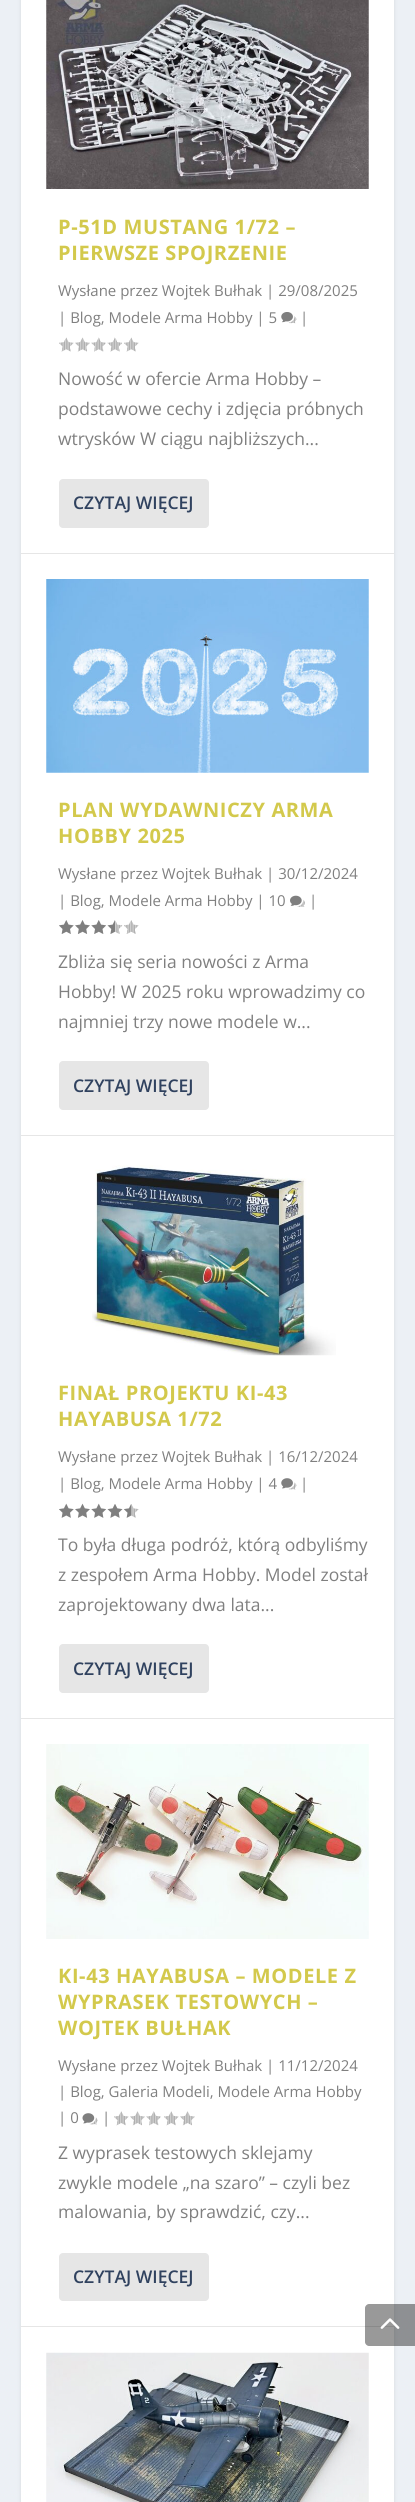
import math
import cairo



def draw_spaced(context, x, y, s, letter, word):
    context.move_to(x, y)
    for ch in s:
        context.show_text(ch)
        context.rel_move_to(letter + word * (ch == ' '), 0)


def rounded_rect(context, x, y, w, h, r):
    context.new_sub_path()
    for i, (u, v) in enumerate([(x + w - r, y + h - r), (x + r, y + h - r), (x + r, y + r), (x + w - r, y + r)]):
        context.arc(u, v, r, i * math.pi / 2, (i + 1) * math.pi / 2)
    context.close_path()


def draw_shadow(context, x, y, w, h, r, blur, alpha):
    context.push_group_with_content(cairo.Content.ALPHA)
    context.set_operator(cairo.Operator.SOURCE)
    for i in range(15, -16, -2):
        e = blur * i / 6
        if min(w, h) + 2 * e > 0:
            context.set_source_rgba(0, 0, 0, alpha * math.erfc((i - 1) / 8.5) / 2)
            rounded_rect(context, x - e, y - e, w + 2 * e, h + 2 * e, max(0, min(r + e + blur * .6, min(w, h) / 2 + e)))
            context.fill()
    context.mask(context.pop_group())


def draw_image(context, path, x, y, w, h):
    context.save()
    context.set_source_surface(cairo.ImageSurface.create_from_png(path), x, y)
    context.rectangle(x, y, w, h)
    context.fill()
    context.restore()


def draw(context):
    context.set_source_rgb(236 / 255, 240 / 255, 245 / 255)
    context.paint()
    context.set_source_rgb(0, 0, 0)
    draw_shadow(context, 21, -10, 373, 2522, 4, 2, 0.1)
    context.set_source_rgb(1, 1, 1)
    context.rectangle(21, 0, 373, 2502)
    context.fill()
    context.set_source_rgb(230 / 255, 230 / 255, 230 / 255)
    context.rectangle(21, 553, 373, 1)
    context.fill()
    draw_image(context, "images/1.png", 46, 0, 323, 189)
    draw_image(context, "images/2.png", 281, 312, 16, 12)
    draw_image(context, "images/3.png", 59, 337, 15, 15)
    draw_image(context, "images/4.png", 75, 337, 15, 15)
    draw_image(context, "images/5.png", 91, 337, 15, 15)
    draw_image(context, "images/6.png", 107, 337, 15, 15)
    draw_image(context, "images/3.png", 124, 337, 15, 15)
    rounded_rect(context, 59, 479, 150, 49, 4)
    context.fill()
    context.rectangle(21, 1135, 373, 1)
    context.fill()
    draw_image(context, "images/7.png", 46, 579, 323, 194)
    draw_image(context, "images/8.png", 290, 895, 15, 12)
    draw_image(context, "images/9.png", 59, 920, 15, 14)
    draw_image(context, "images/10.png", 75, 920, 15, 14)
    draw_image(context, "images/11.png", 91, 920, 15, 14)
    draw_image(context, "images/12.png", 107, 920, 16, 14)
    draw_image(context, "images/13.png", 124, 920, 15, 14)
    rounded_rect(context, 59, 1061, 150, 49, 4)
    context.fill()
    context.rectangle(21, 1718, 373, 1)
    context.fill()
    draw_image(context, "images/14.png", 92, 1165, 244, 191)
    draw_image(context, "images/15.png", 281, 1478, 16, 12)
    draw_image(context, "images/16.png", 59, 1503, 15, 15)
    draw_image(context, "images/17.png", 75, 1503, 15, 15)
    draw_image(context, "images/18.png", 91, 1503, 15, 15)
    draw_image(context, "images/19.png", 107, 1504, 16, 14)
    draw_image(context, "images/20.png", 124, 1504, 15, 14)
    rounded_rect(context, 59, 1644, 150, 49, 4)
    context.fill()
    context.rectangle(21, 2326, 373, 1)
    context.fill()
    draw_image(context, "images/21.png", 46, 1744, 323, 195)
    draw_image(context, "images/22.png", 82, 2113, 16, 12)
    draw_image(context, "images/23.png", 114, 2111, 15, 15)
    draw_image(context, "images/24.png", 130, 2111, 15, 15)
    draw_image(context, "images/25.png", 146, 2111, 15, 15)
    draw_image(context, "images/23.png", 164, 2111, 15, 15)
    draw_image(context, "images/24.png", 180, 2111, 15, 15)
    rounded_rect(context, 59, 2253, 150, 48, 4)
    context.fill()
    draw_image(context, "images/26.png", 46, 2352, 323, 150)
    context.set_source_rgba(0, 0, 0, 0.4)
    context.new_path()
    context.move_to(369, 2304)
    context.line_to(415, 2304)
    context.line_to(415, 2346)
    context.line_to(369, 2346)
    context.curve_to(367, 2346, 365, 2344, 365, 2342)
    context.line_to(365, 2308)
    context.curve_to(365, 2306, 367, 2304, 369, 2304)
    context.close_path()
    context.fill()
    draw_image(context, "images/27.png", 380, 2318, 20, 11)
    context.select_font_face("Open Sans", cairo.FontSlant.NORMAL, cairo.FontWeight.BOLD)
    context.set_font_size(20)
    context.set_source_rgb(211 / 255, 201 / 255, 76 / 255)
    draw_spaced(context, 58, 234, "P-51D MUSTANG 1/72 –", 0.6, 0)
    draw_spaced(context, 58, 260, "PIERWSZE SPOJRZENIE", 0.6, 0)
    context.select_font_face("Open Sans")
    context.set_font_size(15)
    context.set_source_rgb(128 / 255, 128 / 255, 128 / 255)
    context.move_to(58, 296)
    context.show_text("Wysłane przez Wojtek Bułhak | 29/08/2025")
    context.move_to(58, 323)
    context.show_text("| Blog, Modele Arma Hobby | 5")
    context.move_to(300, 323)
    context.show_text("|")
    context.set_font_size(17.5)
    context.move_to(58, 385)
    context.show_text("Nowość w ofercie Arma Hobby –")
    context.move_to(58, 415)
    context.show_text("podstawowe cechy i zdjęcia próbnych")
    context.move_to(58, 445)
    context.show_text("wtrysków W ciągu najbliższych...")
    context.select_font_face("Open Sans SemiBold")
    context.set_source_rgb(48 / 255, 66 / 255, 95 / 255)
    context.move_to(73, 509)
    context.show_text("CZYTAJ WIĘCEJ")
    context.select_font_face("Open Sans", cairo.FontSlant.NORMAL, cairo.FontWeight.BOLD)
    context.set_font_size(20)
    context.set_source_rgb(211 / 255, 201 / 255, 76 / 255)
    draw_spaced(context, 58, 817, "PLAN WYDAWNICZY ARMA", 0.6, 0)
    draw_spaced(context, 58, 843, "HOBBY 2025", 0.6, 0)
    context.select_font_face("Open Sans")
    context.set_font_size(15)
    context.set_source_rgb(128 / 255, 128 / 255, 128 / 255)
    context.move_to(58, 879)
    context.show_text("Wysłane przez Wojtek Bułhak | 30/12/2024")
    context.move_to(58, 906)
    context.show_text("| Blog, Modele Arma Hobby | 10")
    context.move_to(309, 906)
    context.show_text("|")
    context.set_font_size(17.5)
    context.move_to(58, 968)
    context.show_text("Zbliża się seria nowości z Arma")
    context.move_to(58, 998)
    context.show_text("Hobby! W 2025 roku wprowadzimy co")
    context.move_to(58, 1028)
    context.show_text("najmniej trzy nowe modele w...")
    context.select_font_face("Open Sans SemiBold")
    context.set_source_rgb(48 / 255, 66 / 255, 95 / 255)
    context.move_to(73, 1092)
    context.show_text("CZYTAJ WIĘCEJ")
    context.select_font_face("Open Sans", cairo.FontSlant.NORMAL, cairo.FontWeight.BOLD)
    context.set_font_size(20)
    context.set_source_rgb(211 / 255, 201 / 255, 76 / 255)
    draw_spaced(context, 58, 1400, "FINAŁ PROJEKTU KI-43", 0.6, 0)
    draw_spaced(context, 58, 1426, "HAYABUSA 1/72", 0.6, 0)
    context.select_font_face("Open Sans")
    context.set_font_size(15)
    context.set_source_rgb(128 / 255, 128 / 255, 128 / 255)
    context.move_to(58, 1462)
    context.show_text("Wysłane przez Wojtek Bułhak | 16/12/2024")
    context.move_to(58, 1489)
    context.show_text("| Blog, Modele Arma Hobby | 4")
    context.move_to(300, 1489)
    context.show_text("|")
    context.set_font_size(17.5)
    context.move_to(58, 1551)
    context.show_text("To była długa podróż, którą odbyliśmy")
    context.move_to(58, 1581)
    context.show_text("z zespołem Arma Hobby. Model został")
    context.move_to(58, 1611)
    context.show_text("zaprojektowany dwa lata...")
    context.select_font_face("Open Sans SemiBold")
    context.set_source_rgb(48 / 255, 66 / 255, 95 / 255)
    context.move_to(73, 1675)
    context.show_text("CZYTAJ WIĘCEJ")
    context.select_font_face("Open Sans", cairo.FontSlant.NORMAL, cairo.FontWeight.BOLD)
    context.set_font_size(20)
    context.set_source_rgb(211 / 255, 201 / 255, 76 / 255)
    draw_spaced(context, 58, 1983, "KI-43 HAYABUSA – MODELE Z", 0.6, 0)
    draw_spaced(context, 58, 2009, "WYPRASEK TESTOWYCH –", 0.6, 0)
    draw_spaced(context, 58, 2035, "WOJTEK BUŁHAK", 0.6, 0)
    context.select_font_face("Open Sans")
    context.set_font_size(15)
    context.set_source_rgb(128 / 255, 128 / 255, 128 / 255)
    context.move_to(58, 2071)
    context.show_text("Wysłane przez Wojtek Bułhak | 11/12/2024")
    context.move_to(58, 2097)
    context.show_text("| Blog, Galeria Modeli, Modele Arma Hobby")
    context.move_to(58, 2123)
    context.show_text("| 0")
    context.move_to(102, 2123)
    context.show_text("|")
    context.set_font_size(17.5)
    context.move_to(58, 2159)
    context.show_text("Z wyprasek testowych sklejamy")
    context.move_to(58, 2189)
    context.show_text("zwykle modele „na szaro” – czyli bez")
    context.move_to(58, 2218)
    context.show_text("malowania, by sprawdzić, czy...")
    context.select_font_face("Open Sans SemiBold")
    context.set_source_rgb(48 / 255, 66 / 255, 95 / 255)
    context.move_to(73, 2283)
    context.show_text("CZYTAJ WIĘCEJ")


surface = cairo.ImageSurface(cairo.Format.RGB24, 415, 2502)
context = cairo.Context(surface)
options = cairo.FontOptions()
options.set_hint_metrics(cairo.HintMetrics.OFF)
options.set_hint_style(cairo.HintStyle.NONE)
context.set_font_options(options)
context.set_miter_limit(4)
draw(context)
surface.write_to_png("out.png")
